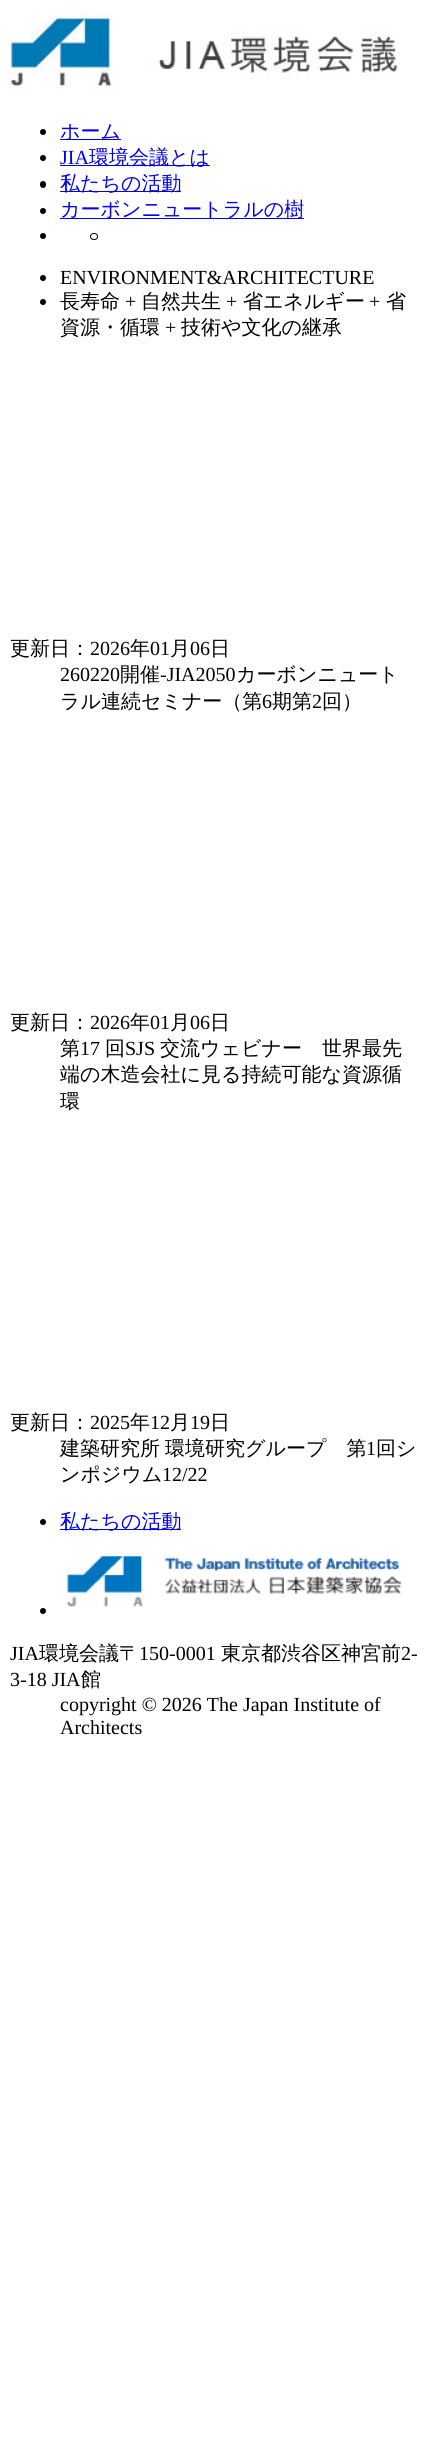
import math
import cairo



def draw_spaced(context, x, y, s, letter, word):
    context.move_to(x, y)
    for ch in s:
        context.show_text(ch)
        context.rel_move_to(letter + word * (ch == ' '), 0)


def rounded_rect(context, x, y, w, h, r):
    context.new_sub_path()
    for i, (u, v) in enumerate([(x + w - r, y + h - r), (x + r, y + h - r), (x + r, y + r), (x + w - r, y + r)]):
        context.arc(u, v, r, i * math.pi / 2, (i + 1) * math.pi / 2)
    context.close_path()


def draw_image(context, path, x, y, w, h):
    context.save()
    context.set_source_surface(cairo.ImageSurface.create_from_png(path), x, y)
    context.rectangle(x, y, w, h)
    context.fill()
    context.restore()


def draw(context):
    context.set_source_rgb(1, 1, 1)
    context.paint()
    draw_image(context, "images/1.png", 10, 10, 390, 80)
    context.set_source_rgb(0, 0, 0)
    context.arc(43, 132, 3, 0, 2 * math.pi)
    context.fill()
    context.set_source_rgb(0, 0, 238 / 255)
    context.rectangle(60, 139, 61, 1)
    context.fill()
    context.set_source_rgb(0, 0, 0)
    context.arc(43, 158, 3, 0, 2 * math.pi)
    context.fill()
    context.set_source_rgb(0, 0, 238 / 255)
    context.rectangle(60, 165, 150, 1)
    context.fill()
    context.set_source_rgb(0, 0, 0)
    rounded_rect(context, 40, 181, 6, 7, 3)
    context.fill()
    context.set_source_rgb(0, 0, 238 / 255)
    context.rectangle(60, 191, 121, 1)
    context.fill()
    context.set_source_rgb(0, 0, 0)
    context.arc(43, 211, 3, 0, 2 * math.pi)
    context.fill()
    context.set_source_rgb(0, 0, 238 / 255)
    context.rectangle(60, 218, 244, 1)
    context.fill()
    context.set_source_rgb(0, 0, 0)
    context.arc(43, 236, 3, 0, 2 * math.pi)
    context.fill()
    rounded_rect(context, 90.5, 233.5, 7, 6, 3)
    context.set_line_width(1)
    context.stroke()
    context.arc(43, 278, 3, 0, 2 * math.pi)
    context.fill()
    context.arc(43, 302, 3, 0, 2 * math.pi)
    context.fill()
    context.arc(43, 1522, 3, 0, 2 * math.pi)
    context.fill()
    context.set_source_rgb(0, 0, 238 / 255)
    context.rectangle(60, 1529, 121, 1)
    context.fill()
    draw_image(context, "images/2.png", 67, 1556, 335, 51)
    context.set_source_rgb(0, 0, 0)
    context.arc(43, 1611, 3, 0, 2 * math.pi)
    context.fill()
    context.select_font_face("WenQuanYi Zen Hei Medium")
    context.set_font_size(20)
    context.set_source_rgb(0, 0, 238 / 255)
    context.move_to(60, 138)
    context.show_text("ホーム")
    context.select_font_face("Liberation Serif")
    context.move_to(60, 164)
    context.show_text("JIA")
    context.select_font_face("WenQuanYi Zen Hei Medium")
    context.move_to(89, 164)
    context.show_text("環境会議とは")
    context.move_to(60, 190)
    context.show_text("私たちの活動")
    context.move_to(60, 216)
    context.show_text("カーボンニュートラルの樹")
    context.select_font_face("Liberation Serif")
    context.set_source_rgb(0, 0, 0)
    context.move_to(60, 284)
    context.show_text("ENVIRONMENT&ARCHITECTURE")
    context.select_font_face("WenQuanYi Zen Hei Medium")
    context.move_to(60, 308)
    context.show_text("長寿命")
    context.select_font_face("Liberation Serif")
    context.move_to(125, 308)
    context.show_text("+")
    context.select_font_face("WenQuanYi Zen Hei Medium")
    context.move_to(141, 308)
    context.show_text("自然共生")
    context.select_font_face("Liberation Serif")
    context.move_to(226, 308)
    context.show_text("+")
    context.select_font_face("WenQuanYi Zen Hei Medium")
    context.move_to(243, 308)
    context.show_text("省エネルギー")
    context.select_font_face("Liberation Serif")
    context.move_to(369, 308)
    context.show_text("+")
    context.select_font_face("WenQuanYi Zen Hei Medium")
    context.move_to(386, 308)
    context.show_text("省")
    context.move_to(60, 334)
    context.show_text("資源・循環")
    context.select_font_face("Liberation Serif")
    context.move_to(165, 334)
    context.show_text("+")
    context.select_font_face("WenQuanYi Zen Hei Medium")
    context.move_to(181, 334)
    context.show_text("技術や文化の継承")
    context.move_to(10, 655)
    context.show_text("更新日：")
    context.select_font_face("Liberation Serif")
    context.move_to(90, 655)
    context.show_text("2026")
    context.select_font_face("WenQuanYi Zen Hei Medium")
    context.move_to(130, 655)
    context.show_text("年")
    context.select_font_face("Liberation Serif")
    context.move_to(150, 655)
    context.show_text("01")
    context.select_font_face("WenQuanYi Zen Hei Medium")
    context.move_to(170, 655)
    context.show_text("月")
    context.select_font_face("Liberation Serif")
    context.move_to(190, 655)
    context.show_text("06")
    context.select_font_face("WenQuanYi Zen Hei Medium")
    context.move_to(210, 655)
    context.show_text("日")
    context.select_font_face("Liberation Serif")
    context.move_to(60, 681)
    context.show_text("260220")
    context.select_font_face("WenQuanYi Zen Hei Medium")
    context.move_to(120, 681)
    context.show_text("開催")
    context.select_font_face("Liberation Serif")
    context.move_to(160, 681)
    context.show_text("-JIA2050")
    context.select_font_face("WenQuanYi Zen Hei Medium")
    context.move_to(236, 681)
    context.show_text("カーボンニュート")
    context.move_to(60, 708)
    context.show_text("ラル連続セミナー（第")
    context.select_font_face("Liberation Serif")
    context.move_to(262, 708)
    context.show_text("6")
    context.select_font_face("WenQuanYi Zen Hei Medium")
    context.move_to(272, 708)
    context.show_text("期第")
    context.select_font_face("Liberation Serif")
    context.move_to(312, 708)
    context.show_text("2")
    context.select_font_face("WenQuanYi Zen Hei Medium")
    context.move_to(322, 708)
    context.show_text("回）")
    context.move_to(10, 1029)
    context.show_text("更新日：")
    context.select_font_face("Liberation Serif")
    context.move_to(90, 1029)
    context.show_text("2026")
    context.select_font_face("WenQuanYi Zen Hei Medium")
    context.move_to(130, 1029)
    context.show_text("年")
    context.select_font_face("Liberation Serif")
    context.move_to(150, 1029)
    context.show_text("01")
    context.select_font_face("WenQuanYi Zen Hei Medium")
    context.move_to(170, 1029)
    context.show_text("月")
    context.select_font_face("Liberation Serif")
    context.move_to(190, 1029)
    context.show_text("06")
    context.select_font_face("WenQuanYi Zen Hei Medium")
    context.move_to(210, 1029)
    context.show_text("日")
    context.move_to(60, 1055)
    context.show_text("第")
    context.select_font_face("Liberation Serif")
    context.move_to(80, 1055)
    context.show_text("17")
    context.select_font_face("WenQuanYi Zen Hei Medium")
    context.move_to(105, 1055)
    context.show_text("回")
    context.select_font_face("Liberation Serif")
    context.move_to(125, 1055)
    context.show_text("SJS")
    context.select_font_face("WenQuanYi Zen Hei Medium")
    context.move_to(160, 1055)
    context.show_text("交流ウェビナー　世界最先")
    context.move_to(60, 1081)
    context.show_text("端の木造会社に見る持続可能な資源循")
    context.move_to(60, 1108)
    context.show_text("環")
    context.move_to(10, 1429)
    context.show_text("更新日：")
    context.select_font_face("Liberation Serif")
    context.move_to(90, 1429)
    context.show_text("2025")
    context.select_font_face("WenQuanYi Zen Hei Medium")
    context.move_to(130, 1429)
    context.show_text("年")
    context.select_font_face("Liberation Serif")
    context.move_to(150, 1429)
    context.show_text("12")
    context.select_font_face("WenQuanYi Zen Hei Medium")
    context.move_to(170, 1429)
    context.show_text("月")
    context.select_font_face("Liberation Serif")
    context.move_to(190, 1429)
    context.show_text("19")
    context.select_font_face("WenQuanYi Zen Hei Medium")
    context.move_to(210, 1429)
    context.show_text("日")
    draw_spaced(context, 60, 1455, "建築研究所 環境研究グループ　第", 0, -1)
    context.select_font_face("Liberation Serif")
    context.move_to(366, 1455)
    context.show_text("1")
    context.select_font_face("WenQuanYi Zen Hei Medium")
    context.move_to(376, 1455)
    context.show_text("回シ")
    context.move_to(60, 1481)
    context.show_text("ンポジウム")
    context.select_font_face("Liberation Serif")
    context.move_to(162, 1481)
    context.show_text("12/22")
    context.select_font_face("WenQuanYi Zen Hei Medium")
    context.set_source_rgb(0, 0, 238 / 255)
    context.move_to(60, 1528)
    context.show_text("私たちの活動")
    context.select_font_face("Liberation Serif")
    context.set_source_rgb(0, 0, 0)
    context.move_to(10, 1660)
    context.show_text("JIA")
    context.select_font_face("WenQuanYi Zen Hei Medium")
    context.move_to(39, 1660)
    context.show_text("環境会議〒")
    context.select_font_face("Liberation Serif")
    context.move_to(139, 1660)
    context.show_text("150-0001")
    context.select_font_face("WenQuanYi Zen Hei Medium")
    context.move_to(221, 1660)
    context.show_text("東京都渋谷区神宮前")
    context.select_font_face("Liberation Serif")
    context.move_to(401, 1660)
    context.show_text("2-")
    context.move_to(10, 1686)
    context.show_text("3-18 JIA")
    context.select_font_face("WenQuanYi Zen Hei Medium")
    context.move_to(81, 1686)
    context.show_text("館")
    context.select_font_face("Liberation Serif")
    context.move_to(60, 1711)
    context.show_text("copyright © 2026 The Japan Institute of")
    context.move_to(60, 1734)
    context.show_text("Architects")


surface = cairo.ImageSurface(cairo.Format.RGB24, 427, 2455)
context = cairo.Context(surface)
options = cairo.FontOptions()
options.set_hint_metrics(cairo.HintMetrics.OFF)
options.set_hint_style(cairo.HintStyle.NONE)
context.set_font_options(options)
context.set_miter_limit(4)
draw(context)
surface.write_to_png("out.png")
